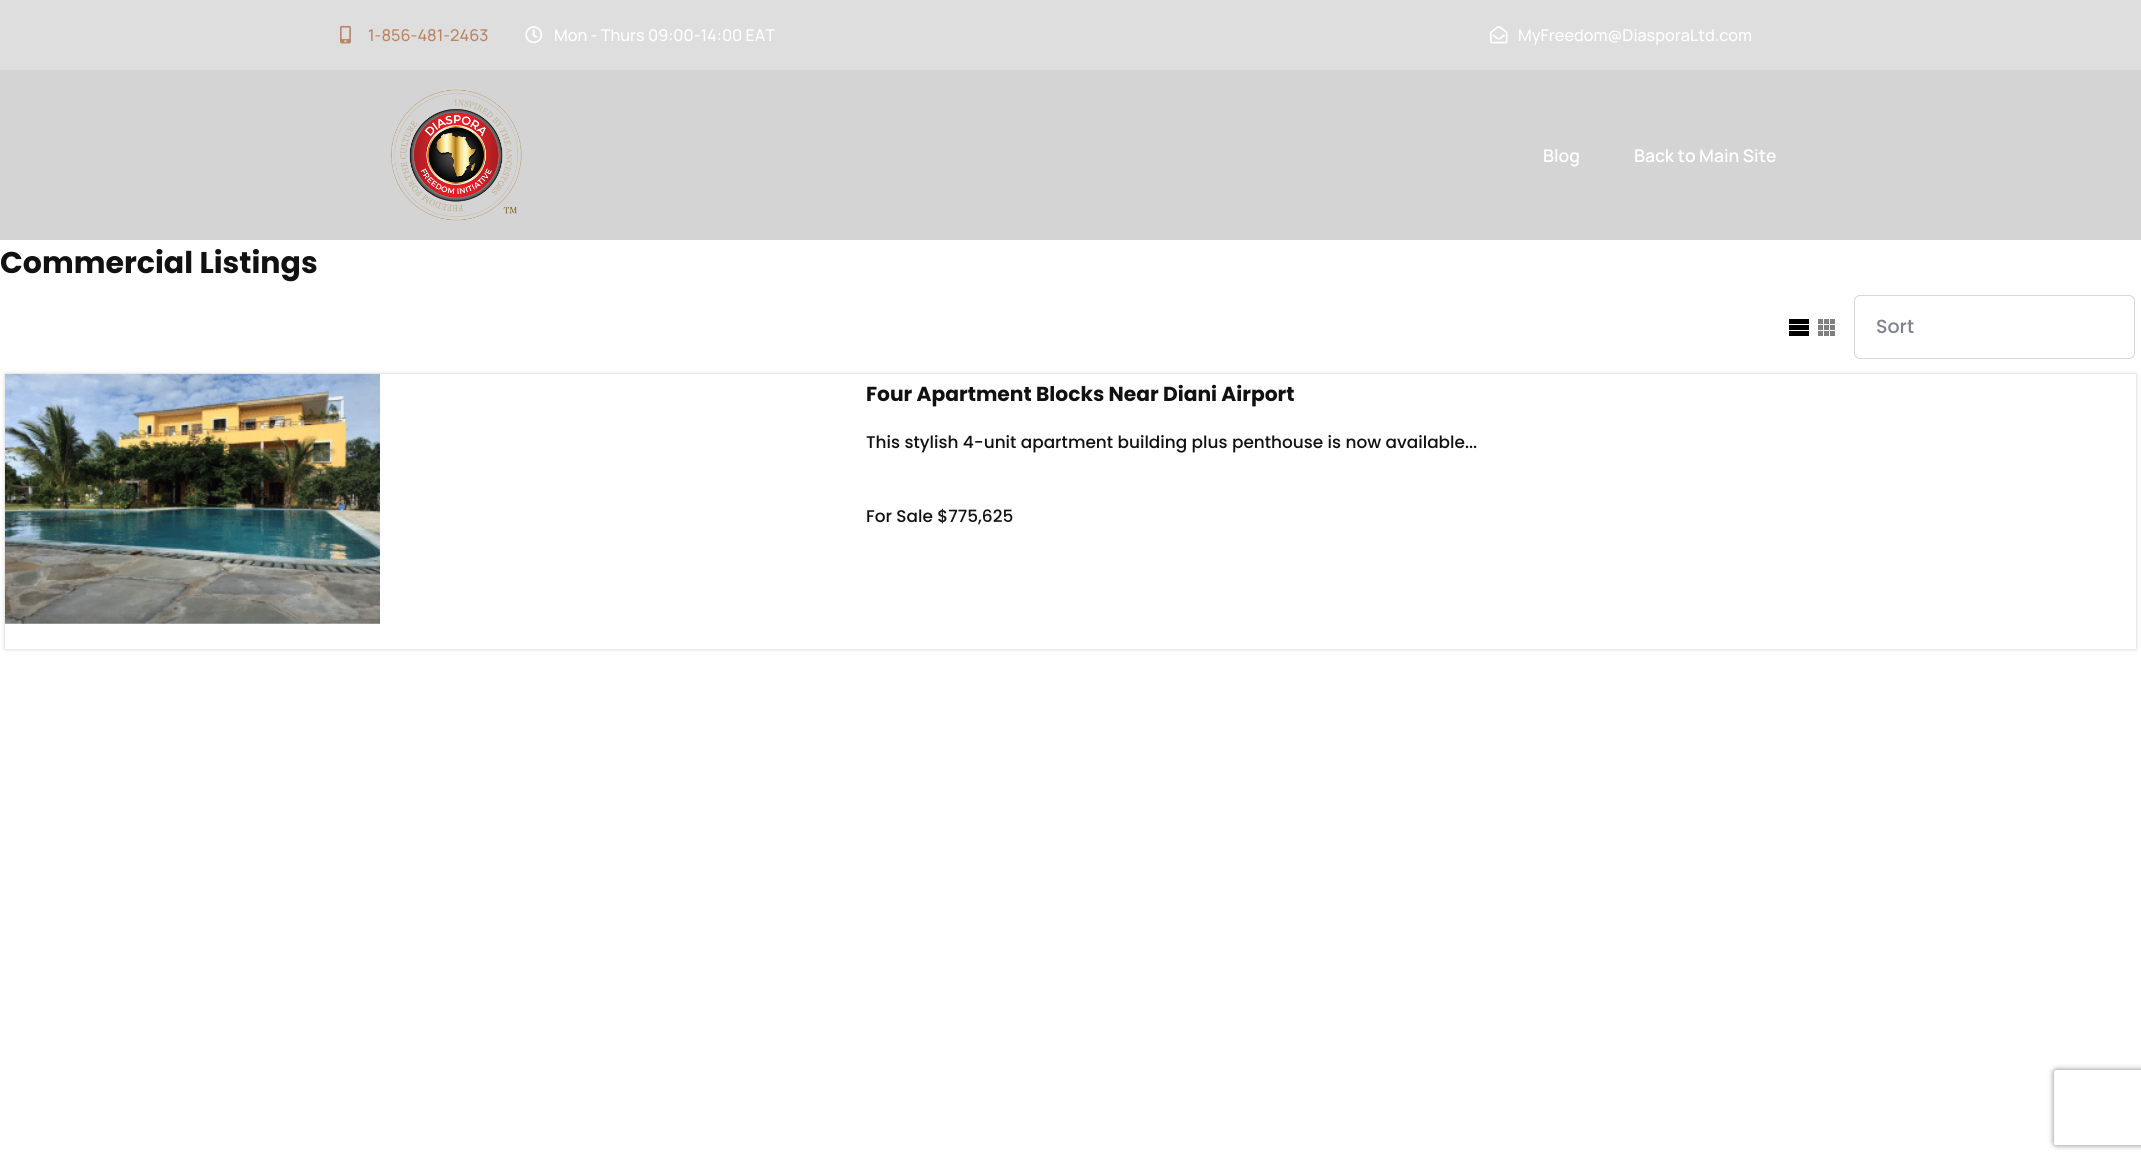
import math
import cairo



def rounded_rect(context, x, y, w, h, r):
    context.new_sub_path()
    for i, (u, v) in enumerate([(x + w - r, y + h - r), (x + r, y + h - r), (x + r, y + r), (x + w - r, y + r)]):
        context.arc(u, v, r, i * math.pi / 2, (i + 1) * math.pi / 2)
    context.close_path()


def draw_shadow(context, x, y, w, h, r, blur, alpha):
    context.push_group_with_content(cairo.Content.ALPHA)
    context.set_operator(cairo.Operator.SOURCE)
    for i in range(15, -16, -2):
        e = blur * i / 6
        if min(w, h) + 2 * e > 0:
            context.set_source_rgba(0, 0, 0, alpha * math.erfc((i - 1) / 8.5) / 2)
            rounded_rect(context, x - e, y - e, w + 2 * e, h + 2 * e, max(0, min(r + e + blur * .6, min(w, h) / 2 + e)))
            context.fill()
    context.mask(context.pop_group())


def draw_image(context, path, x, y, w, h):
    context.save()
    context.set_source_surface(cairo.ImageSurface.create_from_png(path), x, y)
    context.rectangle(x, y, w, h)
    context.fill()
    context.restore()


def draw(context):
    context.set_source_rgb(1, 1, 1)
    context.paint()
    context.set_source_rgb(222 / 255, 222 / 255, 222 / 255)
    context.rectangle(0, 0, 2141, 70)
    context.fill()
    draw_image(context, "images/1.png", 340, 25, 11, 19)
    draw_image(context, "images/2.png", 525, 26, 18, 18)
    draw_image(context, "images/3.png", 1490, 26, 18, 18)
    context.set_source_rgb(212 / 255, 212 / 255, 212 / 255)
    context.rectangle(0, 70, 2141, 170)
    context.fill()
    draw_image(context, "images/4.png", 390, 89, 132, 132)
    draw_image(context, "images/5.png", 1789, 319, 20, 17)
    draw_image(context, "images/6.png", 1818, 319, 17, 17)
    rounded_rect(context, 1854.5, 295.5, 280, 63, 5.5)
    context.set_source_rgb(213 / 255, 214 / 255, 222 / 255)
    context.set_line_width(1)
    context.stroke()
    context.set_source_rgb(204 / 255, 204 / 255, 204 / 255)
    draw_shadow(context, 5, 374, 2131, 275, 0, 2, 1)
    context.set_source_rgb(1, 1, 1)
    context.rectangle(5, 374, 2131, 275)
    context.fill()
    draw_image(context, "images/7.png", 5, 373, 375, 251)
    context.save()
    context.set_fill_rule(cairo.FillRule.EVEN_ODD)
    context.new_path()
    context.move_to(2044, 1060)
    context.line_to(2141, 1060)
    context.line_to(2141, 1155)
    context.line_to(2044, 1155)
    context.close_path()
    context.move_to(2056.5, 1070)
    context.line_to(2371.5, 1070)
    context.curve_to(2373, 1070, 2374, 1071, 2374, 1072.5)
    context.line_to(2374, 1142.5)
    context.curve_to(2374, 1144, 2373, 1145, 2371.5, 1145)
    context.line_to(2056.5, 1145)
    context.curve_to(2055, 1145, 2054, 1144, 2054, 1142.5)
    context.line_to(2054, 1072.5)
    context.curve_to(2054, 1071, 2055, 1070, 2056.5, 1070)
    context.close_path()
    context.clip()
    context.set_source_rgb(128 / 255, 128 / 255, 128 / 255)
    draw_shadow(context, 2054, 1070, 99, 75, 2.5, 3, 1)
    context.restore()
    context.select_font_face("Manrope Medium")
    context.set_font_size(16.25)
    context.set_source_rgb(188 / 255, 134 / 255, 100 / 255)
    context.move_to(368, 41)
    context.show_text("1-856-481-2463")
    context.set_source_rgb(1, 1, 1)
    context.move_to(554, 41)
    context.show_text("Mon - Thurs 09:00-14:00 EAT")
    context.move_to(1518, 41)
    context.show_text("MyFreedom@DiasporaLtd.com")
    context.select_font_face("Manrope SemiBold")
    context.set_font_size(17.5)
    context.move_to(1543, 162)
    context.show_text("Blog")
    context.move_to(1634, 162)
    context.show_text("Back to Main Site")
    context.select_font_face("Poppins", cairo.FontSlant.NORMAL, cairo.FontWeight.BOLD)
    context.set_font_size(30)
    context.set_source_rgb(17 / 255, 17 / 255, 17 / 255)
    context.move_to(0, 273)
    context.show_text("Commercial Listings")
    context.select_font_face("Poppins Medium")
    context.set_font_size(19)
    context.set_source_rgb(128 / 255, 130 / 255, 145 / 255)
    context.move_to(1876, 333)
    context.show_text("Sort")
    context.select_font_face("Poppins", cairo.FontSlant.NORMAL, cairo.FontWeight.BOLD)
    context.set_font_size(20.25)
    context.set_source_rgb(17 / 255, 17 / 255, 17 / 255)
    context.move_to(866, 401)
    context.show_text("Four Apartment Blocks Near Diani Airport")
    context.select_font_face("Poppins Medium")
    context.set_font_size(16.9)
    context.move_to(866, 448)
    context.show_text("This stylish 4-unit apartment building plus penthouse is now available...")
    context.move_to(866, 522)
    context.show_text("For Sale $775,625")


surface = cairo.ImageSurface(cairo.Format.RGB24, 2141, 1162)
context = cairo.Context(surface)
options = cairo.FontOptions()
options.set_hint_metrics(cairo.HintMetrics.OFF)
options.set_hint_style(cairo.HintStyle.NONE)
context.set_font_options(options)
context.set_miter_limit(4)
draw(context)
surface.write_to_png("out.png")
